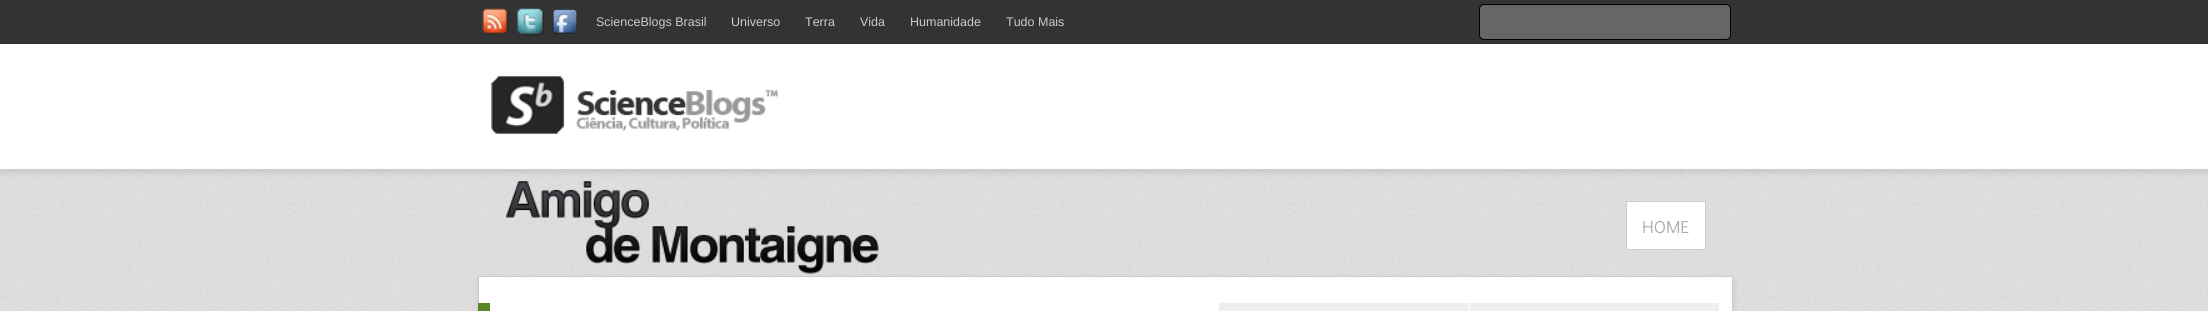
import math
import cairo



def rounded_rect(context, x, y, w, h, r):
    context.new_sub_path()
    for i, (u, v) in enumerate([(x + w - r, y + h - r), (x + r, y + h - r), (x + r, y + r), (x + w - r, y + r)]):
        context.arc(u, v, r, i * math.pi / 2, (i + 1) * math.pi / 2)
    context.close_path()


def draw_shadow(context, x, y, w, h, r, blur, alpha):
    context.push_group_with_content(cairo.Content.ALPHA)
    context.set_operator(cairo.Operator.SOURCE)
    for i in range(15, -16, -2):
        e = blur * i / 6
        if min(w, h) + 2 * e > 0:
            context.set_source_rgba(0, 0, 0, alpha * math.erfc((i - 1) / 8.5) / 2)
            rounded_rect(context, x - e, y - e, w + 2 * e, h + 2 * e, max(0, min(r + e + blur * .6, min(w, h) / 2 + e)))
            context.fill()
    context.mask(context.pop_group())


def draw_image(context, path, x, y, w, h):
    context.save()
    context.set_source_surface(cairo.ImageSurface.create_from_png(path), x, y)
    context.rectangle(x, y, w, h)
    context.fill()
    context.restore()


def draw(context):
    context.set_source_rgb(1, 1, 1)
    context.paint()
    draw_image(context, "images/1.png", 0, 170, 2208, 141)
    context.set_source_rgb(51 / 255, 51 / 255, 51 / 255)
    context.rectangle(0, 0, 2208, 44)
    context.fill()
    draw_image(context, "images/2.png", 482, 8, 27, 27)
    draw_image(context, "images/3.png", 517, 8, 27, 28)
    draw_image(context, "images/4.png", 552, 8, 26, 26)
    context.set_source_rgb(102 / 255, 102 / 255, 102 / 255)
    rounded_rect(context, 1479.5, 4.5, 251, 35, 4.5)
    context.fill_preserve()
    context.set_source_rgb(0, 0, 0)
    context.set_line_width(1)
    context.stroke()
    context.set_source_rgb(0, 0, 0)
    draw_shadow(context, 478, 279, 1255, 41, 0, 3, 0.1)
    draw_image(context, "images/6.png", 505, 181, 374, 93)
    draw_shadow(context, 0, 46, 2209, 127, 0, 3, 0.1)
    context.set_source_rgb(1, 1, 1)
    context.rectangle(0, 44, 2208, 125)
    context.fill()
    context.set_source_rgb(204 / 255, 204 / 255, 204 / 255)
    context.rectangle(0, 169, 2208, 1)
    context.fill()
    draw_image(context, "images/5.png", 491, 76, 288, 58)
    context.set_source_rgb(1, 1, 1)
    context.rectangle(1626.5, 201.5, 79, 48)
    context.fill_preserve()
    context.set_source_rgb(204 / 255, 204 / 255, 204 / 255)
    context.stroke()
    context.set_source_rgb(1, 1, 1)
    context.rectangle(478.5, 276.5, 1254, 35)
    context.fill_preserve()
    context.set_source_rgb(204 / 255, 204 / 255, 204 / 255)
    context.stroke()
    context.set_source_rgb(89 / 255, 133 / 255, 39 / 255)
    context.rectangle(478, 303, 12, 8)
    context.fill()
    context.set_source_rgb(238 / 255, 238 / 255, 238 / 255)
    context.rectangle(1219, 303, 500, 8)
    context.fill()
    context.set_source_rgb(1, 1, 1)
    context.rectangle(1469, 303, 1, 8)
    context.fill()
    context.select_font_face("Liberation Sans")
    context.set_font_size(12.5)
    context.set_source_rgb(204 / 255, 204 / 255, 204 / 255)
    context.move_to(596, 26)
    context.show_text("ScienceBlogs Brasil")
    context.move_to(731, 26)
    context.show_text("Universo")
    context.move_to(805, 26)
    context.show_text("Terra")
    context.move_to(860, 26)
    context.show_text("Vida")
    context.move_to(910, 26)
    context.show_text("Humanidade")
    context.move_to(1006, 26)
    context.show_text("Tudo Mais")
    context.select_font_face("Didact Gothic")
    context.set_font_size(17.5)
    context.set_source_rgb(170 / 255, 170 / 255, 170 / 255)
    context.move_to(1642, 233)
    context.show_text("HOME")


surface = cairo.ImageSurface(cairo.Format.RGB24, 2208, 311)
context = cairo.Context(surface)
options = cairo.FontOptions()
options.set_hint_metrics(cairo.HintMetrics.OFF)
options.set_hint_style(cairo.HintStyle.NONE)
context.set_font_options(options)
context.set_miter_limit(4)
draw(context)
surface.write_to_png("out.png")
